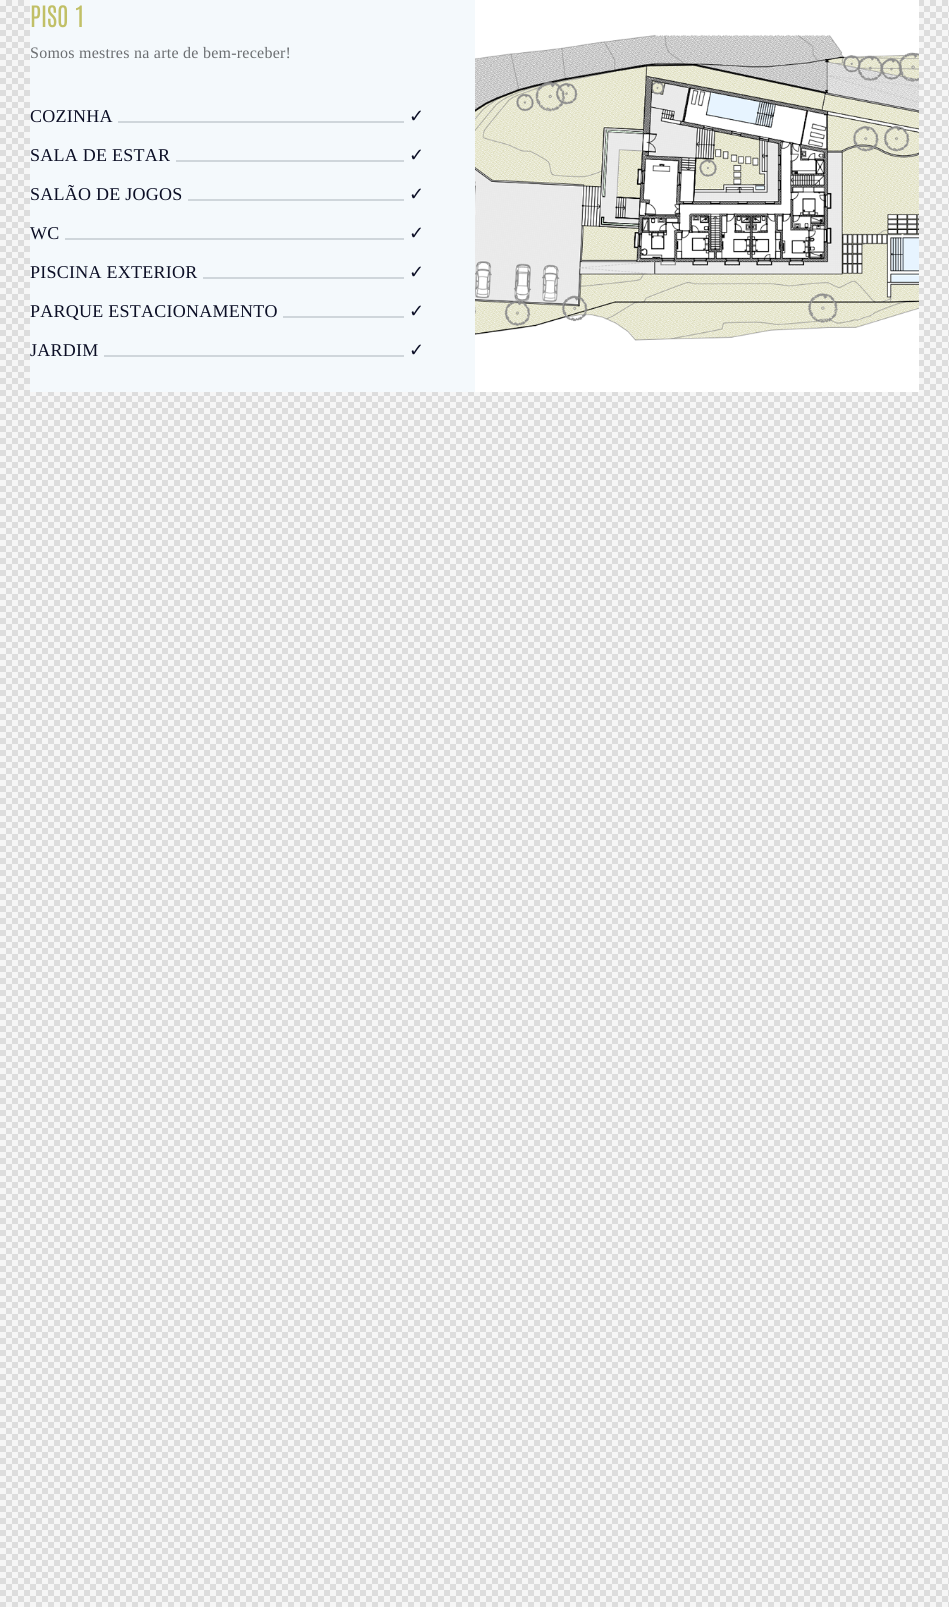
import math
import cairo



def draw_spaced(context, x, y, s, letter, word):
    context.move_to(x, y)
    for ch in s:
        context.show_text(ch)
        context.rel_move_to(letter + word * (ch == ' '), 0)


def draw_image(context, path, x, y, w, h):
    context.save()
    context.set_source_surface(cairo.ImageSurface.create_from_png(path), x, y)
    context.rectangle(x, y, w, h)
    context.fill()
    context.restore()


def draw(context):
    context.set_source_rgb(1, 1, 1)
    context.paint()
    draw_image(context, "images/1.png", 0, 0, 949, 1607)
    context.set_source_rgb(244 / 255, 249 / 255, 252 / 255)
    context.rectangle(30, 0, 445, 392)
    context.fill()
    context.set_source_rgb(207 / 255, 214 / 255, 219 / 255)
    context.rectangle(118, 121, 286, 2)
    context.fill()
    context.rectangle(176, 160, 228, 2)
    context.fill()
    context.rectangle(188, 199, 216, 2)
    context.fill()
    context.rectangle(65, 238, 339, 2)
    context.fill()
    context.rectangle(203, 277, 201, 2)
    context.fill()
    context.rectangle(283, 316, 121, 2)
    context.fill()
    context.rectangle(104, 355, 300, 2)
    context.fill()
    draw_image(context, "images/2.png", 475, 0, 444, 392)
    context.select_font_face("Antonio")
    context.set_font_size(25)
    context.set_source_rgb(193 / 255, 192 / 255, 103 / 255)
    context.move_to(30, 27)
    context.show_text("PISO 1")
    context.select_font_face("Liberation Serif")
    context.set_font_size(16)
    context.set_source_rgb(107 / 255, 110 / 255, 113 / 255)
    draw_spaced(context, 30, 58, "Somos mestres na arte de bem-receber!", 0.25, 0)
    context.set_font_size(18)
    context.set_source_rgb(12 / 255, 15 / 255, 38 / 255)
    draw_spaced(context, 30, 122, "COZINHA", 0.25, 0)
    context.select_font_face("DejaVu Sans")
    draw_spaced(context, 409, 122, "✓", 0.25, 0)
    context.select_font_face("Liberation Serif")
    draw_spaced(context, 30, 161, "SALA DE ESTAR", 0.25, 0)
    context.select_font_face("DejaVu Sans")
    draw_spaced(context, 409, 161, "✓", 0.25, 0)
    context.select_font_face("Liberation Serif")
    draw_spaced(context, 30, 200, "SALÃO DE JOGOS", 0.25, 0)
    context.select_font_face("DejaVu Sans")
    draw_spaced(context, 409, 200, "✓", 0.25, 0)
    context.select_font_face("Liberation Serif")
    draw_spaced(context, 30, 239, "WC", 0.25, 0)
    context.select_font_face("DejaVu Sans")
    draw_spaced(context, 409, 239, "✓", 0.25, 0)
    context.select_font_face("Liberation Serif")
    draw_spaced(context, 30, 278, "PISCINA EXTERIOR", 0.25, 0)
    context.select_font_face("DejaVu Sans")
    draw_spaced(context, 409, 278, "✓", 0.25, 0)
    context.select_font_face("Liberation Serif")
    draw_spaced(context, 30, 317, "PARQUE ESTACIONAMENTO", 0.25, 0)
    context.select_font_face("DejaVu Sans")
    draw_spaced(context, 409, 317, "✓", 0.25, 0)
    context.select_font_face("Liberation Serif")
    draw_spaced(context, 30, 356, "JARDIM", 0.25, 0)
    context.select_font_face("DejaVu Sans")
    draw_spaced(context, 409, 356, "✓", 0.25, 0)


surface = cairo.ImageSurface(cairo.Format.RGB24, 949, 1607)
context = cairo.Context(surface)
options = cairo.FontOptions()
options.set_hint_metrics(cairo.HintMetrics.OFF)
options.set_hint_style(cairo.HintStyle.NONE)
context.set_font_options(options)
context.set_miter_limit(4)
draw(context)
surface.write_to_png("out.png")
